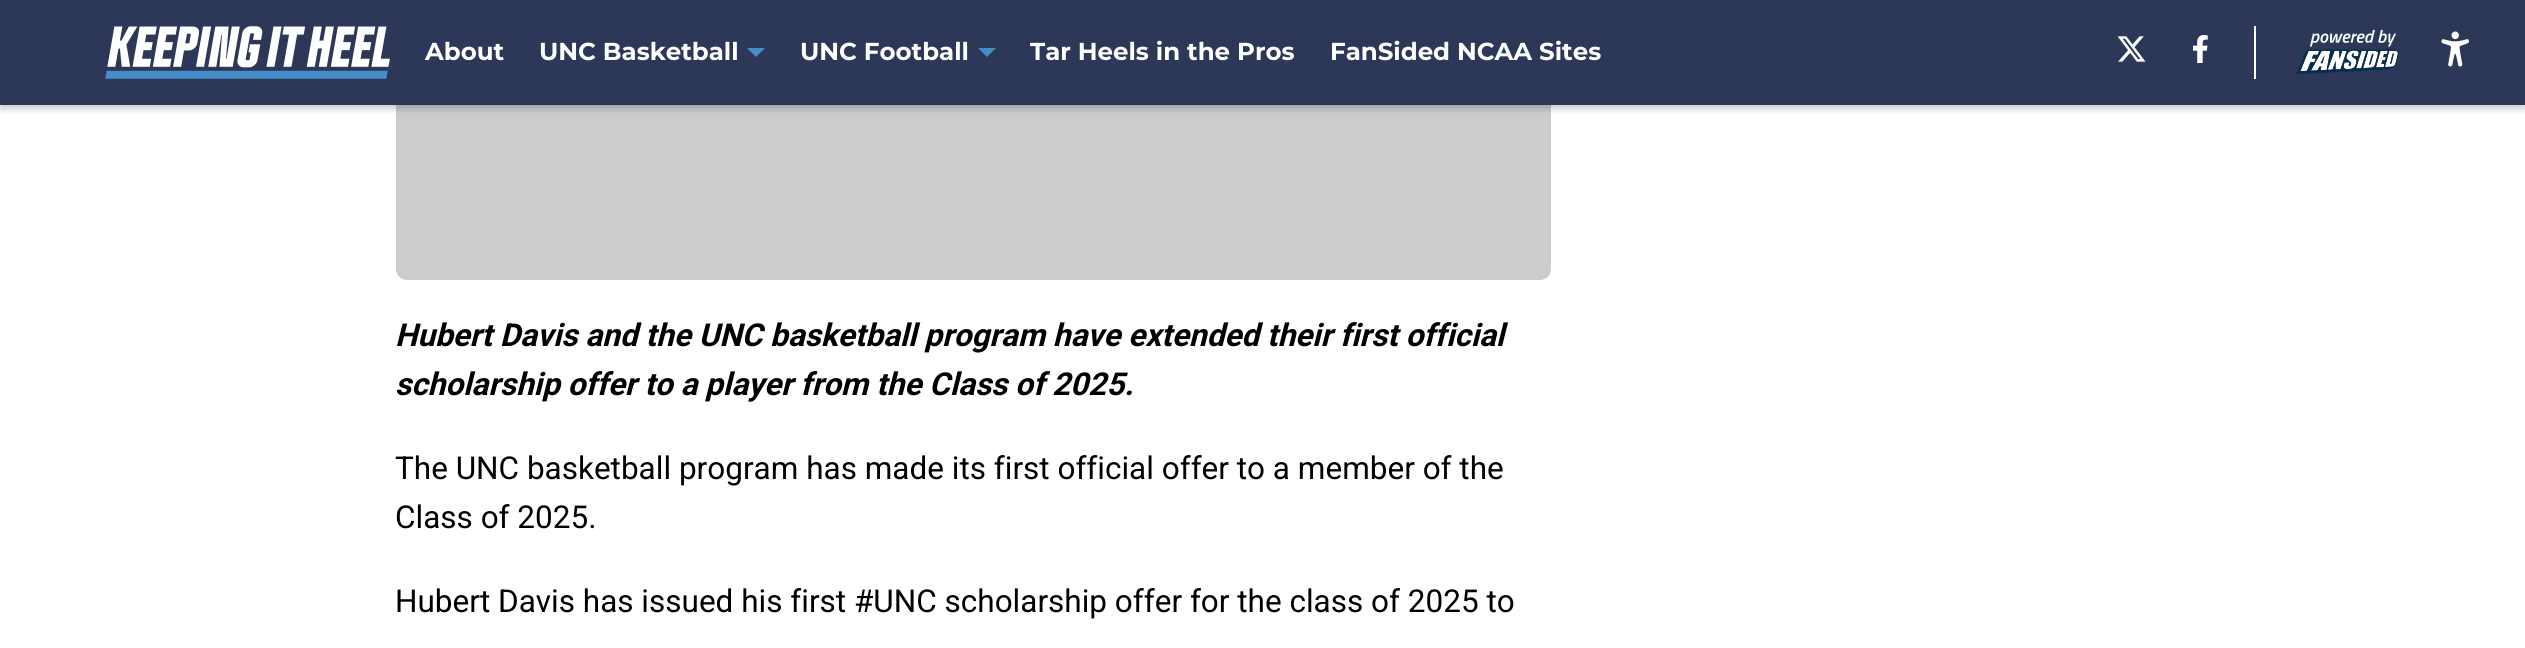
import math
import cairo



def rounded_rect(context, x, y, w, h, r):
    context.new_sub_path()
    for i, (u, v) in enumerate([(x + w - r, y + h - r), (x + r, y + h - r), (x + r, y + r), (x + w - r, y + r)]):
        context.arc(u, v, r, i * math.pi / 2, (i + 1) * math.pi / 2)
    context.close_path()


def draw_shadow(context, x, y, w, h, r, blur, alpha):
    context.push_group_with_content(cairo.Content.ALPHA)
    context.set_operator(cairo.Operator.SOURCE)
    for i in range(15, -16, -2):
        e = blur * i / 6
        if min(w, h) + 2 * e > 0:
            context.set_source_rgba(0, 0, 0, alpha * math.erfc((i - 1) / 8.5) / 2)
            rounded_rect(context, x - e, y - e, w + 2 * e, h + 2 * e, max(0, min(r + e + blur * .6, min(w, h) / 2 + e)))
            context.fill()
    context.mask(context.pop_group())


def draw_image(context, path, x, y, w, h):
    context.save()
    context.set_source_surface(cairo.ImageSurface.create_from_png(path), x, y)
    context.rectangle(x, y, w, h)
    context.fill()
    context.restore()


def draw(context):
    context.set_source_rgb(1, 1, 1)
    context.paint()
    context.set_source_rgb(204 / 255, 204 / 255, 204 / 255)
    rounded_rect(context, 396, -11, 1155, 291, 11)
    context.fill()
    context.set_source_rgb(0, 0, 0)
    draw_shadow(context, 0, 4, 2525, 105, 0, 3.5, 0.2)
    context.set_source_rgb(45 / 255, 56 / 255, 89 / 255)
    context.rectangle(0, 0, 2525, 105)
    context.fill()
    draw_image(context, "images/1.png", 105, 26, 285, 53)
    context.set_source_rgb(69 / 255, 142 / 255, 201 / 255)
    context.set_fill_rule(cairo.FillRule.EVEN_ODD)
    context.new_path()
    context.move_to(747, 48)
    context.line_to(756, 57)
    context.line_to(765, 48)
    context.close_path()
    context.fill()
    context.new_path()
    context.move_to(978, 48)
    context.line_to(987, 57)
    context.line_to(996, 48)
    context.close_path()
    context.fill()
    draw_image(context, "images/2.png", 2118, 36, 28, 26)
    draw_image(context, "images/3.png", 2193, 35, 15, 28)
    context.set_source_rgb(1, 1, 1)
    context.rectangle(2254, 26, 2, 53)
    context.fill()
    draw_image(context, "images/4.png", 2296, 29, 103, 45)
    draw_image(context, "images/5.png", 2441, 31, 28, 36)
    context.select_font_face("Montserrat Thin")
    context.set_font_size(24.5)
    context.move_to(425, 60)
    context.show_text("About")
    context.move_to(539, 60)
    context.show_text("UNC Basketball")
    context.move_to(800, 60)
    context.show_text("UNC Football")
    context.move_to(1030, 60)
    context.show_text("Tar Heels in the Pros")
    context.move_to(1330, 60)
    context.show_text("FanSided NCAA Sites")
    context.select_font_face("Roboto", cairo.FontSlant.ITALIC, cairo.FontWeight.BOLD)
    context.set_font_size(31.5)
    context.set_source_rgb(0, 0, 0)
    context.move_to(395, 346)
    context.show_text("Hubert Davis and the UNC basketball program have extended their first official")
    context.move_to(395, 395)
    context.show_text("scholarship offer to a player from the Class of 2025.")
    context.select_font_face("Roboto")
    context.move_to(395, 479)
    context.show_text("The UNC basketball program has made its first official offer to a member of the")
    context.move_to(395, 528)
    context.show_text("Class of 2025.")
    context.move_to(395, 612)
    context.show_text("Hubert Davis has issued his first #UNC scholarship offer for the class of 2025 to")


surface = cairo.ImageSurface(cairo.Format.RGB24, 2525, 648)
context = cairo.Context(surface)
options = cairo.FontOptions()
options.set_hint_metrics(cairo.HintMetrics.OFF)
options.set_hint_style(cairo.HintStyle.NONE)
context.set_font_options(options)
context.set_miter_limit(4)
draw(context)
surface.write_to_png("out.png")
